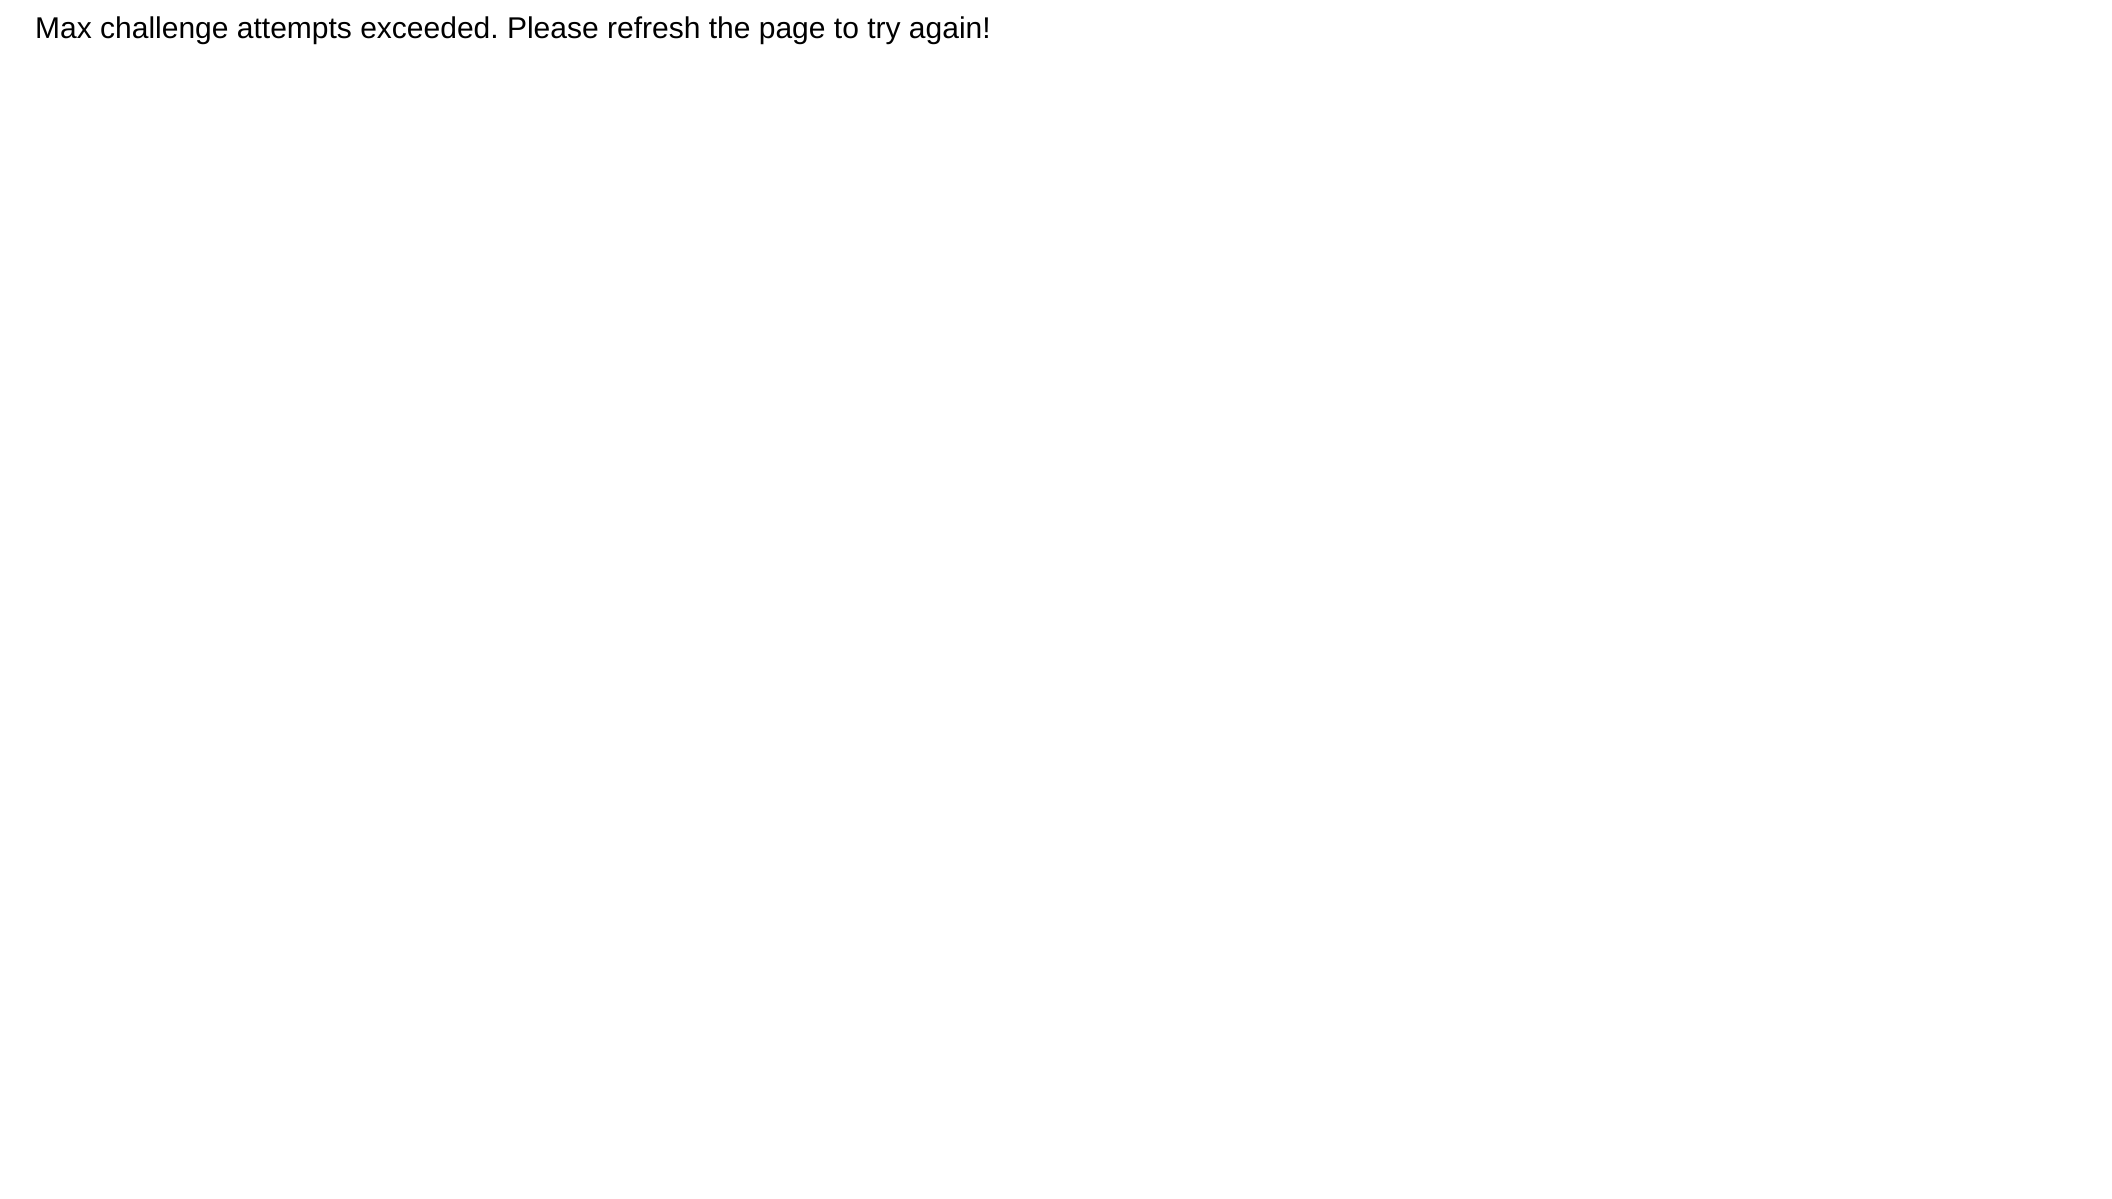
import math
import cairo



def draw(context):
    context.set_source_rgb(1, 1, 1)
    context.paint()
    context.select_font_face("Liberation Sans")
    context.set_font_size(30)
    context.set_source_rgb(0, 0, 0)
    context.move_to(35, 38)
    context.show_text("Max challenge attempts exceeded. Please refresh the page to try again!")


surface = cairo.ImageSurface(cairo.Format.RGB24, 2112, 1199)
context = cairo.Context(surface)
options = cairo.FontOptions()
options.set_hint_metrics(cairo.HintMetrics.OFF)
options.set_hint_style(cairo.HintStyle.NONE)
context.set_font_options(options)
context.set_miter_limit(4)
draw(context)
surface.write_to_png("out.png")
